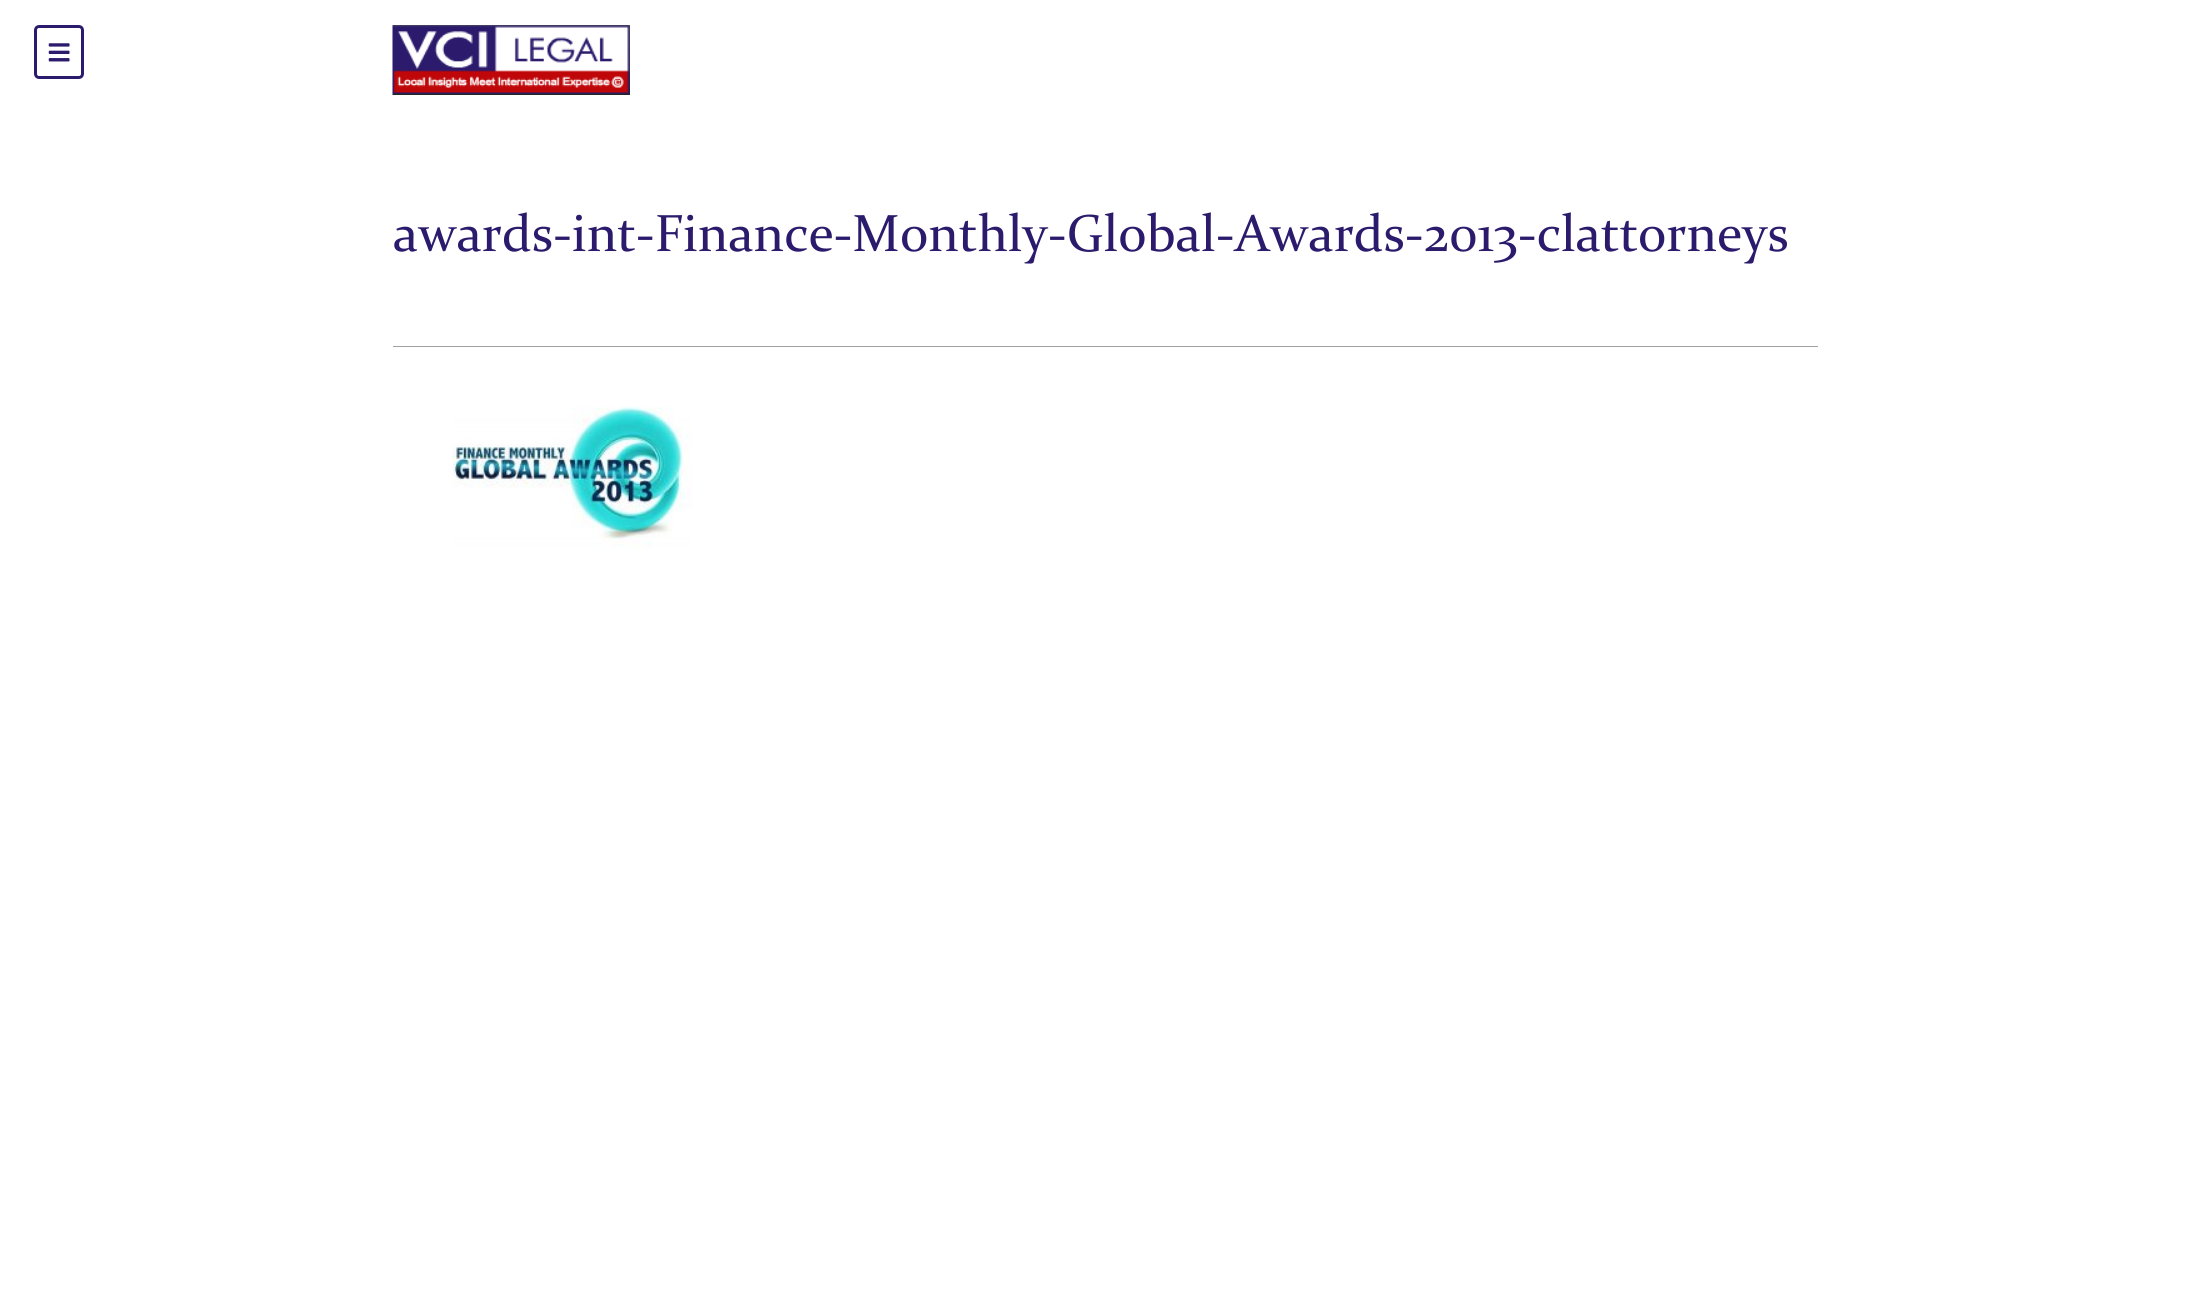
import math
import cairo



def rounded_rect(context, x, y, w, h, r):
    context.new_sub_path()
    for i, (u, v) in enumerate([(x + w - r, y + h - r), (x + r, y + h - r), (x + r, y + r), (x + w - r, y + r)]):
        context.arc(u, v, r, i * math.pi / 2, (i + 1) * math.pi / 2)
    context.close_path()


def draw_image(context, path, x, y, w, h):
    context.save()
    context.set_source_surface(cairo.ImageSurface.create_from_png(path), x, y)
    context.rectangle(x, y, w, h)
    context.fill()
    context.restore()


def draw(context):
    context.set_source_rgb(1, 1, 1)
    context.paint()
    rounded_rect(context, 35.5, 26.5, 47, 51, 3.5)
    context.set_source_rgb(44 / 255, 27 / 255, 108 / 255)
    context.set_line_width(3)
    context.stroke()
    draw_image(context, "images/1.png", 48, 43, 22, 19)
    draw_image(context, "images/2.png", 392, 25, 238, 70)
    context.set_source_rgb(161 / 255, 161 / 255, 161 / 255)
    context.rectangle(393, 346, 1425, 1)
    context.fill()
    draw_image(context, "images/3.png", 452, 406, 240, 142)
    context.select_font_face("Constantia")
    context.set_font_size(52.5)
    context.set_source_rgb(44 / 255, 27 / 255, 108 / 255)
    context.move_to(393, 251)
    context.show_text("awards-int-Finance-Monthly-Global-Awards-2013-clattorneys")


surface = cairo.ImageSurface(cairo.Format.RGB24, 2209, 1303)
context = cairo.Context(surface)
options = cairo.FontOptions()
options.set_hint_metrics(cairo.HintMetrics.OFF)
options.set_hint_style(cairo.HintStyle.NONE)
context.set_font_options(options)
context.set_miter_limit(4)
draw(context)
surface.write_to_png("out.png")
